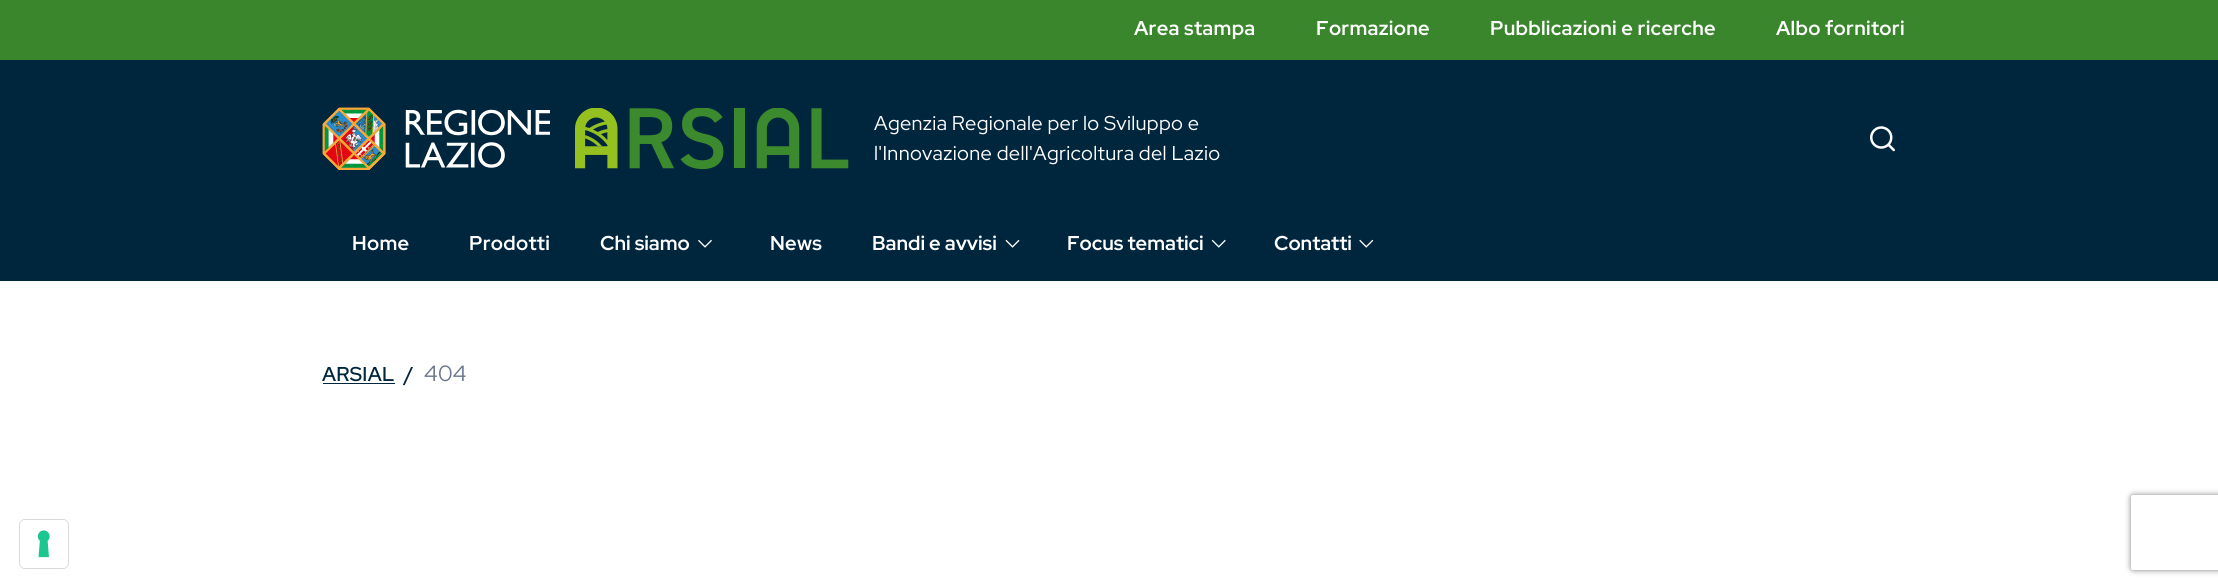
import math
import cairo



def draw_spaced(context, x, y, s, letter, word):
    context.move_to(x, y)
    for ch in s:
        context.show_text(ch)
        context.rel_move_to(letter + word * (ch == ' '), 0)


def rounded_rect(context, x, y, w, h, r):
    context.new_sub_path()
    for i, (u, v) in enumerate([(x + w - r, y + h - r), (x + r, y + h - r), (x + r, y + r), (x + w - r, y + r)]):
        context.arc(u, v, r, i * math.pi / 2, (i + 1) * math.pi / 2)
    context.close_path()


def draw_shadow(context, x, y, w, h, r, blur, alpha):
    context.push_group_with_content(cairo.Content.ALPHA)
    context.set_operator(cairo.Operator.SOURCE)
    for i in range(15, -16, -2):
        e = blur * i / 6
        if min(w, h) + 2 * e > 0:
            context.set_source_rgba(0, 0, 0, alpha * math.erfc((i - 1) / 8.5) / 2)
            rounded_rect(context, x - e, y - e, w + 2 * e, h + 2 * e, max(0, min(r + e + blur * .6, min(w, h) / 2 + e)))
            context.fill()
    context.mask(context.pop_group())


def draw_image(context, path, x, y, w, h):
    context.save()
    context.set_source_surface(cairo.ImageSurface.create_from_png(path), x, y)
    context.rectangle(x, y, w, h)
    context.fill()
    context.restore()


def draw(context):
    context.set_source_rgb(1, 1, 1)
    context.paint()
    context.set_source_rgb(58 / 255, 134 / 255, 45 / 255)
    context.rectangle(0, 0, 2218, 60)
    context.fill()
    context.set_source_rgb(0, 38 / 255, 62 / 255)
    context.rectangle(0, 60, 2218, 221)
    context.fill()
    draw_image(context, "images/1.png", 322, 107, 228, 63)
    draw_image(context, "images/2.png", 575, 108, 274, 62)
    draw_image(context, "images/3.png", 1870, 126, 25, 26)
    draw_image(context, "images/4.png", 698, 239, 14, 9)
    draw_image(context, "images/5.png", 1005, 239, 15, 9)
    draw_image(context, "images/6.png", 1211, 239, 15, 9)
    draw_image(context, "images/7.png", 1359, 239, 15, 9)
    context.rectangle(323, 383, 72, 1)
    context.fill()
    rounded_rect(context, 19.5, 519.5, 49, 49, 5.5)
    context.set_source_rgb(217 / 255, 217 / 255, 217 / 255)
    context.set_line_width(1)
    context.stroke()
    context.set_source_rgb(1, 1, 1)
    rounded_rect(context, 20, 520, 48, 48, 5)
    context.fill()
    draw_image(context, "images/8.png", 37, 530, 13, 28)
    context.save()
    context.set_fill_rule(cairo.FillRule.EVEN_ODD)
    context.new_path()
    context.move_to(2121, 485)
    context.line_to(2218, 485)
    context.line_to(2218, 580)
    context.line_to(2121, 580)
    context.close_path()
    context.move_to(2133.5, 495)
    context.line_to(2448.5, 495)
    context.curve_to(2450, 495, 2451, 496, 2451, 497.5)
    context.line_to(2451, 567.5)
    context.curve_to(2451, 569, 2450, 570, 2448.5, 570)
    context.line_to(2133.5, 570)
    context.curve_to(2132, 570, 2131, 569, 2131, 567.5)
    context.line_to(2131, 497.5)
    context.curve_to(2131, 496, 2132, 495, 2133.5, 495)
    context.close_path()
    context.clip()
    context.set_source_rgb(128 / 255, 128 / 255, 128 / 255)
    draw_shadow(context, 2131, 495, 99, 75, 2.5, 3, 1)
    context.restore()
    context.select_font_face("Red Hat Display", cairo.FontSlant.NORMAL, cairo.FontWeight.BOLD)
    context.set_font_size(20)
    draw_spaced(context, 1134, 35, "Area stampa", 0.3, 0)
    draw_spaced(context, 1316, 35, "Formazione", 0.3, 0)
    draw_spaced(context, 1490, 35, "Pubblicazioni e ricerche", 0.3, 0)
    draw_spaced(context, 1776, 35, "Albo fornitori", 0.3, 0)
    context.select_font_face("Red Hat Display")
    draw_spaced(context, 874, 130, "Agenzia Regionale per lo Sviluppo e", 0.3, 0)
    draw_spaced(context, 874, 160, "l'Innovazione dell'Agricoltura del Lazio", 0.3, 0)
    context.select_font_face("Red Hat Display", cairo.FontSlant.NORMAL, cairo.FontWeight.BOLD)
    draw_spaced(context, 352, 250, "Home", 0.3, 0)
    draw_spaced(context, 469, 250, "Prodotti", 0.3, 0)
    context.move_to(600, 250)
    context.show_text("Chi siamo")
    draw_spaced(context, 770, 250, "News", 0.3, 0)
    context.move_to(872, 250)
    context.show_text("Bandi e avvisi")
    context.move_to(1067, 250)
    context.show_text("Focus tematici")
    context.move_to(1274, 250)
    context.show_text("Contatti")
    context.select_font_face("Red Hat Display SemiBold")
    context.set_source_rgb(0, 38 / 255, 62 / 255)
    draw_spaced(context, 322, 381, "ARSIAL", 0.3, 0)
    draw_spaced(context, 404, 381, "/", 0.3, 0)
    context.select_font_face("Red Hat Display")
    context.set_font_size(22)
    context.set_source_rgb(107 / 255, 118 / 255, 142 / 255)
    draw_spaced(context, 424, 381, "404", 0.3, 0)


surface = cairo.ImageSurface(cairo.Format.RGB24, 2218, 587)
context = cairo.Context(surface)
options = cairo.FontOptions()
options.set_hint_metrics(cairo.HintMetrics.OFF)
options.set_hint_style(cairo.HintStyle.NONE)
context.set_font_options(options)
context.set_miter_limit(4)
draw(context)
surface.write_to_png("out.png")
